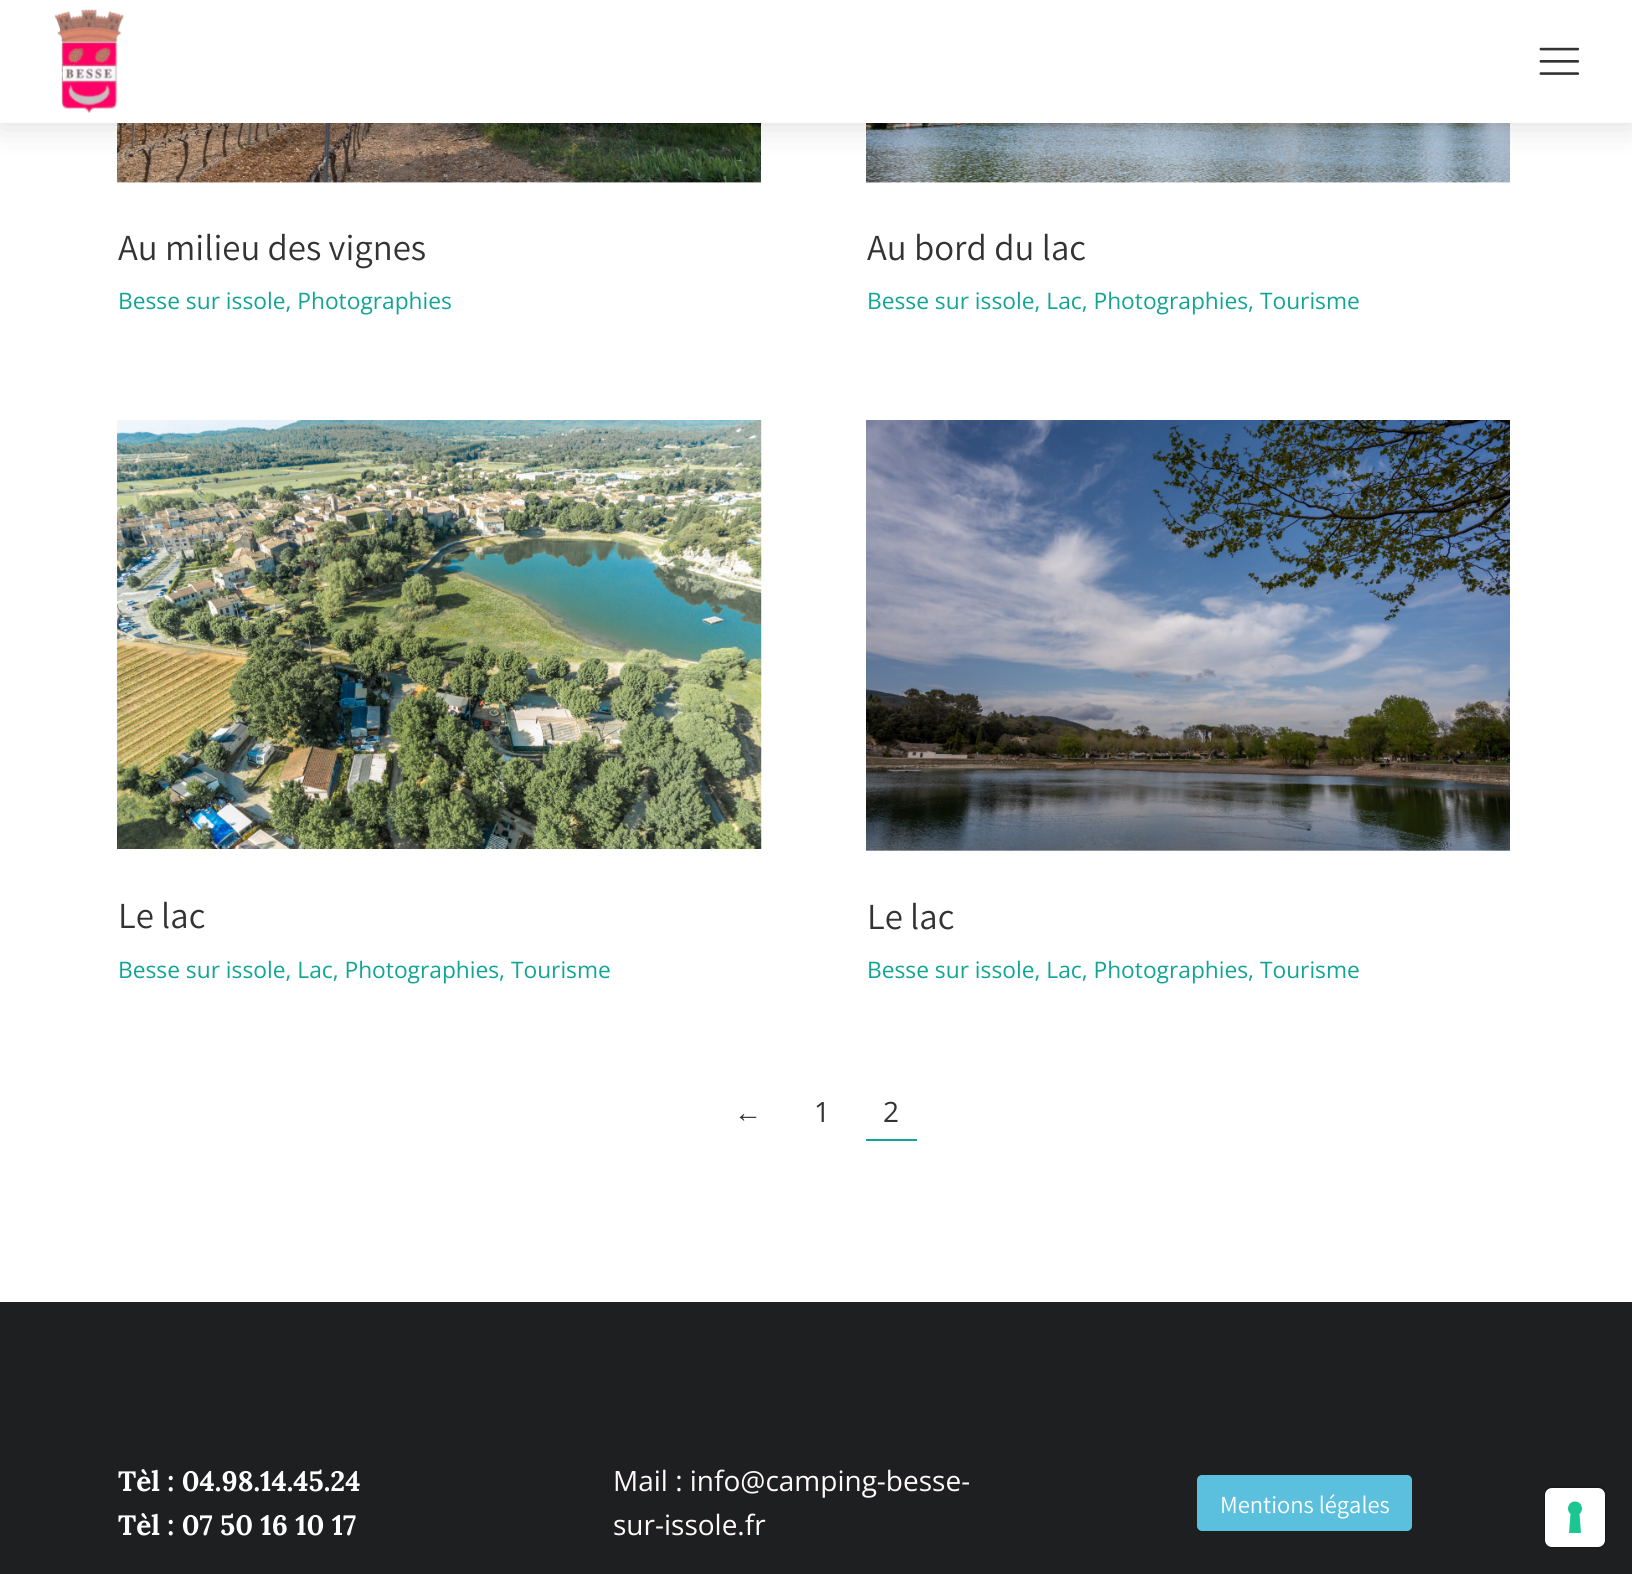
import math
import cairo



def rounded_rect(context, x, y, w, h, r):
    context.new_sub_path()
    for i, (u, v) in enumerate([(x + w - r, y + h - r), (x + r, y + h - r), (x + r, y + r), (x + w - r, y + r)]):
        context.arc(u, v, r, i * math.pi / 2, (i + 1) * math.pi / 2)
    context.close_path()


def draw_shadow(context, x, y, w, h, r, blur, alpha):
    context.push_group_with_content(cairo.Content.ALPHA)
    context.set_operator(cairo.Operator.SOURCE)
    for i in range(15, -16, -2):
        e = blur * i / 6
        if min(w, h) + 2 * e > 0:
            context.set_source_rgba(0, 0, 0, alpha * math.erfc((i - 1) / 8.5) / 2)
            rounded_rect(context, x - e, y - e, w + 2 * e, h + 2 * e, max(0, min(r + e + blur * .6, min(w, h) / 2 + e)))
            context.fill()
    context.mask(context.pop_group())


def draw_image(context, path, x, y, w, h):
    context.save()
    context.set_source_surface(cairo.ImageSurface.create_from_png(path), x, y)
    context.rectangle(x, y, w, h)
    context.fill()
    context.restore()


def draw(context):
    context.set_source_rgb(1, 1, 1)
    context.paint()
    draw_image(context, "images/3.png", 117, 123, 644, 60)
    draw_image(context, "images/4.png", 866, 123, 644, 60)
    context.set_source_rgb(0, 0, 0)
    draw_shadow(context, 0, 0, 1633, 123, 0, 17.5, 0.15)
    context.set_source_rgb(1, 1, 1)
    context.rectangle(0, 0, 1632, 123)
    context.fill()
    draw_image(context, "images/1.png", 54, 9, 70, 104)
    draw_image(context, "images/2.png", 1539, 47, 41, 28)
    draw_image(context, "images/5.png", 117, 420, 645, 429)
    context.set_source_rgb(248 / 255, 248 / 255, 248 / 255)
    context.rectangle(866, 850, 644, 1)
    context.fill()
    draw_image(context, "images/6.png", 866, 420, 644, 431)
    context.set_source_rgb(18 / 255, 165 / 255, 148 / 255)
    context.rectangle(866, 1139, 51, 2)
    context.fill()
    context.set_source_rgb(30 / 255, 31 / 255, 32 / 255)
    context.rectangle(0, 1302, 1632, 272)
    context.fill()
    context.set_source_rgb(91 / 255, 192 / 255, 222 / 255)
    rounded_rect(context, 1197, 1475, 215, 56, 5)
    context.fill()
    rounded_rect(context, 1545, 1487, 61, 61, 8)
    context.set_source_rgb(26 / 255, 26 / 255, 27 / 255)
    context.stroke()
    context.set_source_rgb(1, 1, 1)
    rounded_rect(context, 1545, 1488, 60, 59, 7)
    context.fill()
    context.set_source_rgb(28 / 255, 198 / 255, 145 / 255)
    context.set_fill_rule(cairo.FillRule.EVEN_ODD)
    context.new_path()
    context.move_to(1575, 1501.5)
    context.curve_to(1581.5, 1501.5, 1584.5, 1509.5, 1579.5, 1514)
    context.line_to(1581, 1533)
    context.line_to(1569, 1533)
    context.line_to(1570.5, 1514)
    context.curve_to(1565.5, 1509.5, 1568.5, 1501.5, 1575, 1501.5)
    context.close_path()
    context.fill()
    context.select_font_face("Assistant")
    context.set_font_size(36.75)
    context.set_source_rgb(51 / 255, 51 / 255, 51 / 255)
    context.move_to(118, 260)
    context.show_text("Au milieu des vignes")
    context.select_font_face("Open Sans")
    context.set_font_size(22.75)
    context.set_source_rgb(18 / 255, 165 / 255, 148 / 255)
    context.move_to(118, 309)
    context.show_text("Besse sur issole, Photographies")
    context.select_font_face("Assistant")
    context.set_font_size(36.75)
    context.set_source_rgb(51 / 255, 51 / 255, 51 / 255)
    context.move_to(867, 260)
    context.show_text("Au bord du lac")
    context.select_font_face("Open Sans")
    context.set_font_size(22.75)
    context.set_source_rgb(18 / 255, 165 / 255, 148 / 255)
    context.move_to(867, 309)
    context.show_text("Besse sur issole, Lac, Photographies, Tourisme")
    context.select_font_face("Assistant")
    context.set_font_size(36.75)
    context.set_source_rgb(51 / 255, 51 / 255, 51 / 255)
    context.move_to(118, 928)
    context.show_text("Le lac")
    context.select_font_face("Open Sans")
    context.set_font_size(22.75)
    context.set_source_rgb(18 / 255, 165 / 255, 148 / 255)
    context.move_to(118, 978)
    context.show_text("Besse sur issole, Lac, Photographies, Tourisme")
    context.select_font_face("Assistant")
    context.set_font_size(36.75)
    context.set_source_rgb(51 / 255, 51 / 255, 51 / 255)
    context.move_to(867, 929)
    context.show_text("Le lac")
    context.select_font_face("Open Sans")
    context.set_font_size(22.75)
    context.set_source_rgb(18 / 255, 165 / 255, 148 / 255)
    context.move_to(867, 978)
    context.show_text("Besse sur issole, Lac, Photographies, Tourisme")
    context.select_font_face("Liberation Sans")
    context.set_font_size(28)
    context.set_source_rgb(51 / 255, 51 / 255, 51 / 255)
    context.move_to(734, 1122)
    context.show_text("←")
    context.select_font_face("Open Sans")
    context.move_to(814, 1122)
    context.show_text("1")
    context.move_to(883, 1122)
    context.show_text("2")
    context.select_font_face("Lora", cairo.FontSlant.NORMAL, cairo.FontWeight.BOLD)
    context.set_source_rgb(1, 1, 1)
    context.move_to(118, 1491)
    context.show_text("Tèl : 04.98.14.45.24")
    context.move_to(118, 1535)
    context.show_text("Tèl : 07 50 16 10 17")
    context.select_font_face("Open Sans")
    context.set_source_rgb(1, 249 / 255, 249 / 255)
    context.move_to(613, 1491)
    context.show_text("Mail : info@camping-besse-")
    context.move_to(613, 1535)
    context.show_text("sur-issole.fr")
    context.select_font_face("Assistant")
    context.set_font_size(24.5)
    context.set_source_rgb(1, 1, 1)
    context.move_to(1220, 1513)
    context.show_text("Mentions légales")


surface = cairo.ImageSurface(cairo.Format.RGB24, 1632, 1574)
context = cairo.Context(surface)
options = cairo.FontOptions()
options.set_hint_metrics(cairo.HintMetrics.OFF)
options.set_hint_style(cairo.HintStyle.NONE)
context.set_font_options(options)
context.set_miter_limit(4)
draw(context)
surface.write_to_png("out.png")
